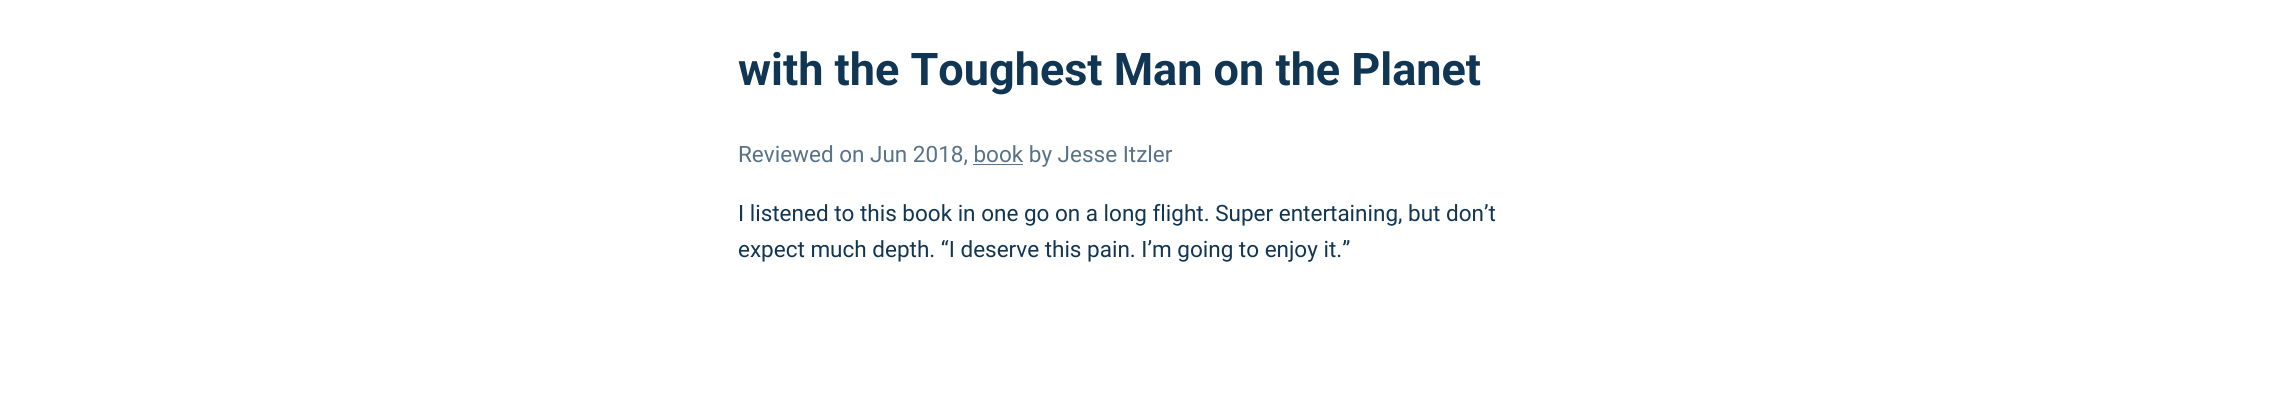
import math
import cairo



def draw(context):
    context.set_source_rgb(1, 1, 1)
    context.paint()
    context.set_source_rgb(88 / 255, 114 / 255, 135 / 255)
    context.rectangle(973, 164, 50, 1)
    context.fill()
    context.select_font_face("Roboto", cairo.FontSlant.NORMAL, cairo.FontWeight.BOLD)
    context.set_font_size(45)
    context.set_source_rgb(17 / 255, 54 / 255, 84 / 255)
    context.move_to(738, 85)
    context.show_text("with the Toughest Man on the Planet")
    context.select_font_face("Roboto")
    context.set_font_size(22.5)
    context.set_source_rgb(88 / 255, 114 / 255, 135 / 255)
    context.move_to(738, 162)
    context.show_text("Reviewed on Jun 2018, book by Jesse Itzler")
    context.set_source_rgb(17 / 255, 54 / 255, 84 / 255)
    context.move_to(738, 221)
    context.show_text("I listened to this book in one go on a long flight. Super entertaining, but don’t")
    context.move_to(738, 257)
    context.show_text("expect much depth. “I deserve this pain. I’m going to enjoy it.”")


surface = cairo.ImageSurface(cairo.Format.RGB24, 2282, 397)
context = cairo.Context(surface)
options = cairo.FontOptions()
options.set_hint_metrics(cairo.HintMetrics.OFF)
options.set_hint_style(cairo.HintStyle.NONE)
context.set_font_options(options)
context.set_miter_limit(4)
draw(context)
surface.write_to_png("out.png")
